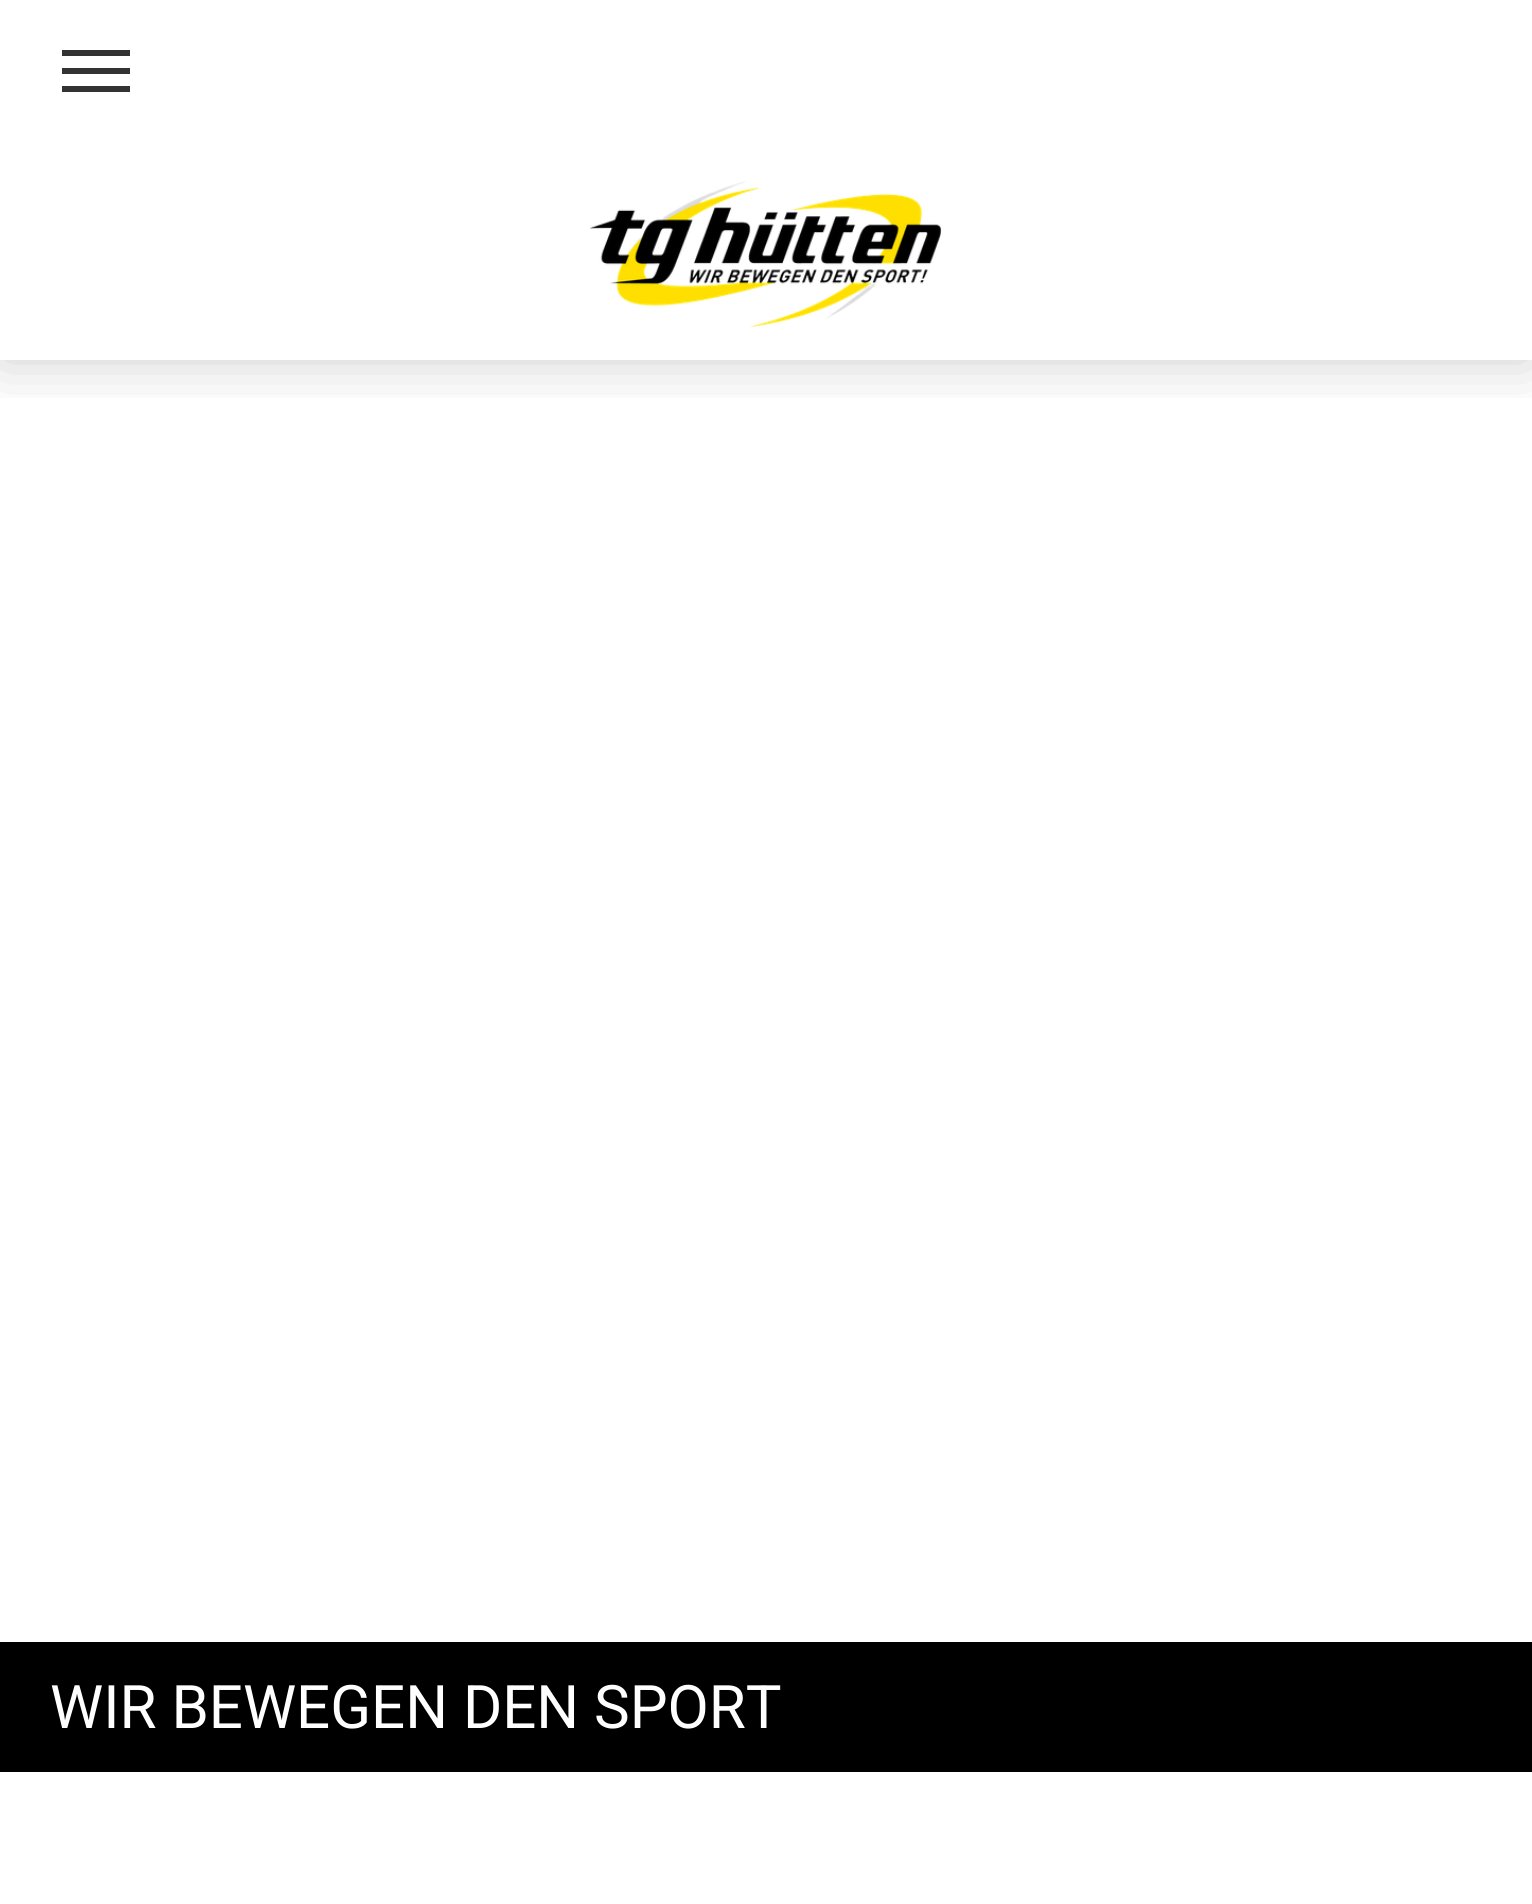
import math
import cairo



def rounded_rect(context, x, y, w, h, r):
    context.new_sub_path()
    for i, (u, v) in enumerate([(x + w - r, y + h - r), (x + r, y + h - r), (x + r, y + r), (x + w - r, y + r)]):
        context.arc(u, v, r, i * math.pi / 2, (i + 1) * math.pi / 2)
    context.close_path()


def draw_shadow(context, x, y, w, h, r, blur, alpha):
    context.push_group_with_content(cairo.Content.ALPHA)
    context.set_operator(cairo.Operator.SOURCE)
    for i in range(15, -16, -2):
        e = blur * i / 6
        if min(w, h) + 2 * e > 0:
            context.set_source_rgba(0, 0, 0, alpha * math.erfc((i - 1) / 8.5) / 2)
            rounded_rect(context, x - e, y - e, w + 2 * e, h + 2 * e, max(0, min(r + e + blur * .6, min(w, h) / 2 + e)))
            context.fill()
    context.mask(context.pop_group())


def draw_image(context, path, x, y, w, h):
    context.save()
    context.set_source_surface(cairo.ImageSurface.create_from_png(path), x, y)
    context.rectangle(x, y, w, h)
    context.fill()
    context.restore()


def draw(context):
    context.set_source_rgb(1, 1, 1)
    context.paint()
    context.save()
    context.rectangle(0, 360, 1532, 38)
    context.clip()
    context.set_source_rgb(0, 0, 0)
    draw_shadow(context, 0, 150, 1532, 210, 0, 30, 0.2)
    context.restore()
    context.set_source_rgb(1, 1, 1)
    context.rectangle(0, 101, 1532, 49)
    context.fill()
    context.set_source_rgb(51 / 255, 51 / 255, 51 / 255)
    context.rectangle(62, 68, 68, 6)
    context.fill()
    context.rectangle(62, 50, 68, 6)
    context.fill()
    context.rectangle(62, 86, 68, 6)
    context.fill()
    draw_image(context, "images/1.png", 590, 181, 352, 147)
    context.set_source_rgb(0, 0, 0)
    context.rectangle(0, 1642, 1532, 130)
    context.fill()
    context.select_font_face("Roboto")
    context.set_font_size(60)
    context.set_source_rgb(1, 1, 1)
    context.move_to(50, 1728)
    context.show_text("WIR BEWEGEN DEN SPORT")


surface = cairo.ImageSurface(cairo.Format.RGB24, 1532, 1904)
context = cairo.Context(surface)
options = cairo.FontOptions()
options.set_hint_metrics(cairo.HintMetrics.OFF)
options.set_hint_style(cairo.HintStyle.NONE)
context.set_font_options(options)
context.set_miter_limit(4)
draw(context)
surface.write_to_png("out.png")
